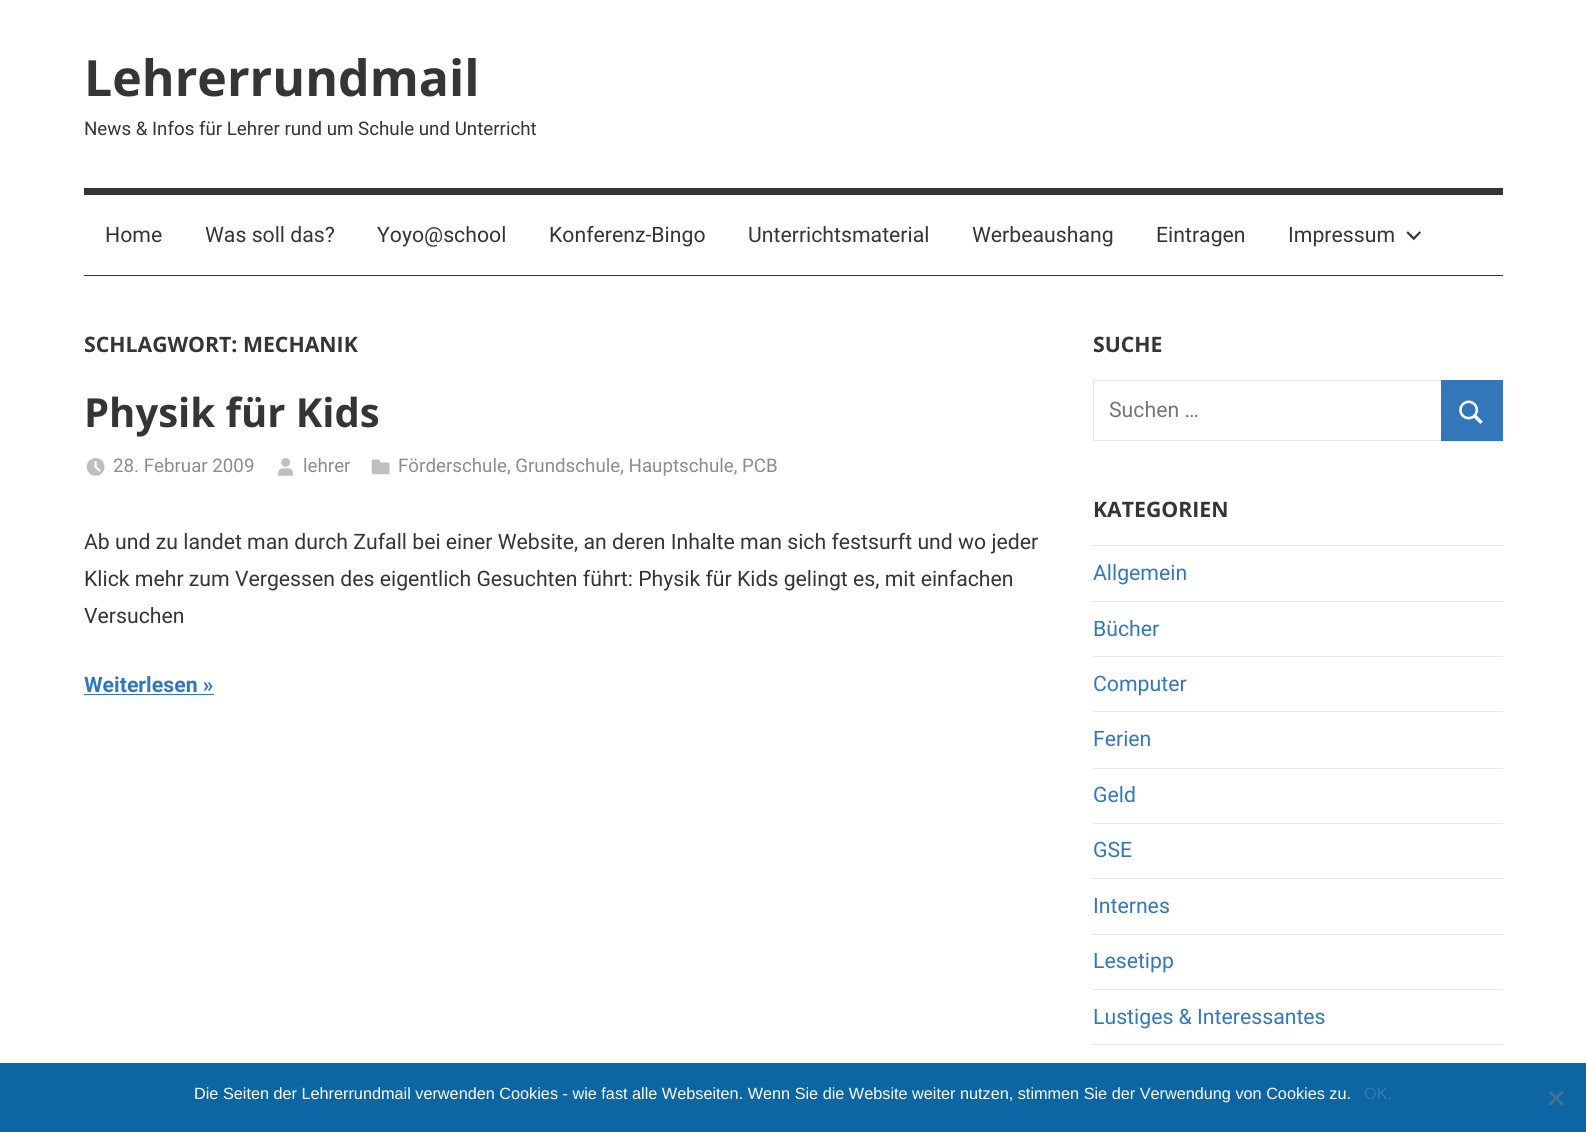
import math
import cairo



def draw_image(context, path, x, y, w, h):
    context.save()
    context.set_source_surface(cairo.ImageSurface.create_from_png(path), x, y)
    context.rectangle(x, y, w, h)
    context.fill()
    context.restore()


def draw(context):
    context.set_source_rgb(1, 1, 1)
    context.paint()
    context.set_source_rgb(53 / 255, 53 / 255, 53 / 255)
    context.rectangle(84, 188, 1419, 7)
    context.fill()
    context.rectangle(84, 275, 1419, 1)
    context.fill()
    draw_image(context, "images/1.png", 1406, 231, 15, 10)
    draw_image(context, "images/2.png", 86, 458, 19, 18)
    draw_image(context, "images/3.png", 278, 458, 15, 18)
    draw_image(context, "images/4.png", 371, 459, 19, 16)
    context.set_source_rgb(51 / 255, 119 / 255, 187 / 255)
    context.rectangle(84, 694, 130, 1)
    context.fill()
    context.rectangle(1093.5, 380.5, 409, 60)
    context.set_source_rgb(230 / 255, 230 / 255, 230 / 255)
    context.set_line_width(1)
    context.stroke()
    context.set_source_rgb(51 / 255, 119 / 255, 187 / 255)
    context.rectangle(1441, 380, 62, 61)
    context.fill()
    draw_image(context, "images/5.png", 1459, 400, 24, 24)
    context.set_source_rgb(230 / 255, 230 / 255, 230 / 255)
    context.rectangle(1093, 545, 410, 1)
    context.fill()
    context.rectangle(1093, 601, 410, 1)
    context.fill()
    context.rectangle(1093, 656, 410, 1)
    context.fill()
    context.rectangle(1093, 711, 410, 1)
    context.fill()
    context.rectangle(1093, 768, 410, 1)
    context.fill()
    context.rectangle(1093, 823, 410, 1)
    context.fill()
    context.rectangle(1093, 878, 410, 1)
    context.fill()
    context.rectangle(1093, 934, 410, 1)
    context.fill()
    context.rectangle(1093, 989, 410, 1)
    context.fill()
    context.rectangle(1093, 1044, 410, 1)
    context.fill()
    context.set_source_rgb(11 / 255, 102 / 255, 163 / 255)
    context.rectangle(0, 1063, 1586, 69)
    context.fill()
    context.set_source_rgb(70 / 255, 115 / 255, 146 / 255)
    context.new_path()
    context.move_to(1562, 1090.5)
    context.line_to(1564, 1092.5)
    context.line_to(1550.5, 1105.5)
    context.line_to(1548.5, 1104)
    context.close_path()
    context.fill()
    context.new_path()
    context.move_to(1548.5, 1092.5)
    context.line_to(1550.5, 1090.5)
    context.line_to(1564, 1104)
    context.line_to(1562, 1105.5)
    context.close_path()
    context.fill()
    context.select_font_face("Open Sans", cairo.FontSlant.NORMAL, cairo.FontWeight.BOLD)
    context.set_font_size(50)
    context.set_source_rgb(53 / 255, 53 / 255, 53 / 255)
    context.move_to(84, 96)
    context.show_text("Lehrerrundmail")
    context.select_font_face("Roboto")
    context.set_font_size(18.75)
    context.move_to(84, 135)
    context.show_text("News & Infos für Lehrer rund um Schule und Unterricht")
    context.set_font_size(21.25)
    context.move_to(105, 242)
    context.show_text("Home")
    context.move_to(205, 242)
    context.show_text("Was soll das?")
    context.move_to(377, 242)
    context.show_text("Yoyo@school")
    context.move_to(549, 242)
    context.show_text("Konferenz-Bingo")
    context.move_to(748, 242)
    context.show_text("Unterrichtsmaterial")
    context.move_to(972, 242)
    context.show_text("Werbeaushang")
    context.move_to(1156, 242)
    context.show_text("Eintragen")
    context.move_to(1288, 242)
    context.show_text("Impressum")
    context.select_font_face("Open Sans", cairo.FontSlant.NORMAL, cairo.FontWeight.BOLD)
    context.move_to(84, 352)
    context.show_text("SCHLAGWORT: MECHANIK")
    context.set_font_size(40)
    context.move_to(84, 427)
    context.show_text("Physik für Kids")
    context.select_font_face("Roboto")
    context.set_font_size(18.75)
    context.set_source_rgb(140 / 255, 140 / 255, 140 / 255)
    context.move_to(113, 472)
    context.show_text("28. Februar 2009")
    context.move_to(303, 472)
    context.show_text("lehrer")
    context.move_to(398, 472)
    context.show_text("Förderschule, Grundschule, Hauptschule, PCB")
    context.set_font_size(21.25)
    context.set_source_rgb(53 / 255, 53 / 255, 53 / 255)
    context.move_to(84, 549)
    context.show_text("Ab und zu landet man durch Zufall bei einer Website, an deren Inhalte man sich festsurft und wo jeder")
    context.move_to(84, 586)
    context.show_text("Klick mehr zum Vergessen des eigentlich Gesuchten führt: Physik für Kids gelingt es, mit einfachen")
    context.move_to(84, 623)
    context.show_text("Versuchen")
    context.select_font_face("Roboto", cairo.FontSlant.NORMAL, cairo.FontWeight.BOLD)
    context.set_source_rgb(51 / 255, 119 / 255, 187 / 255)
    context.move_to(84, 692)
    context.show_text("Weiterlesen »")
    context.select_font_face("Open Sans", cairo.FontSlant.NORMAL, cairo.FontWeight.BOLD)
    context.set_source_rgb(53 / 255, 53 / 255, 53 / 255)
    context.move_to(1093, 352)
    context.show_text("SUCHE")
    context.select_font_face("Roboto")
    context.set_source_rgb(117 / 255, 117 / 255, 117 / 255)
    context.move_to(1109, 417)
    context.show_text("Suchen …")
    context.select_font_face("Open Sans", cairo.FontSlant.NORMAL, cairo.FontWeight.BOLD)
    context.set_source_rgb(53 / 255, 53 / 255, 53 / 255)
    context.move_to(1093, 517)
    context.show_text("KATEGORIEN")
    context.select_font_face("Roboto")
    context.set_source_rgb(51 / 255, 119 / 255, 187 / 255)
    context.move_to(1093, 580)
    context.show_text("Allgemein")
    context.move_to(1093, 636)
    context.show_text("Bücher")
    context.move_to(1093, 691)
    context.show_text("Computer")
    context.move_to(1093, 746)
    context.show_text("Ferien")
    context.move_to(1093, 802)
    context.show_text("Geld")
    context.move_to(1093, 857)
    context.show_text("GSE")
    context.move_to(1093, 913)
    context.show_text("Internes")
    context.move_to(1093, 968)
    context.show_text("Lesetipp")
    context.move_to(1093, 1024)
    context.show_text("Lustiges & Interessantes")
    context.select_font_face("Liberation Sans")
    context.set_font_size(16.25)
    context.set_source_rgb(1, 1, 1)
    context.move_to(194, 1099)
    context.show_text("Die Seiten der Lehrerrundmail verwenden Cookies - wie fast alle Webseiten. Wenn Sie die Website weiter nutzen, stimmen Sie der Verwendung von Cookies zu.")
    context.set_source_rgb(51 / 255, 119 / 255, 187 / 255)
    context.move_to(1364, 1099)
    context.show_text("OK.")


surface = cairo.ImageSurface(cairo.Format.RGB24, 1586, 1132)
context = cairo.Context(surface)
options = cairo.FontOptions()
options.set_hint_metrics(cairo.HintMetrics.OFF)
options.set_hint_style(cairo.HintStyle.NONE)
context.set_font_options(options)
context.set_miter_limit(4)
draw(context)
surface.write_to_png("out.png")
